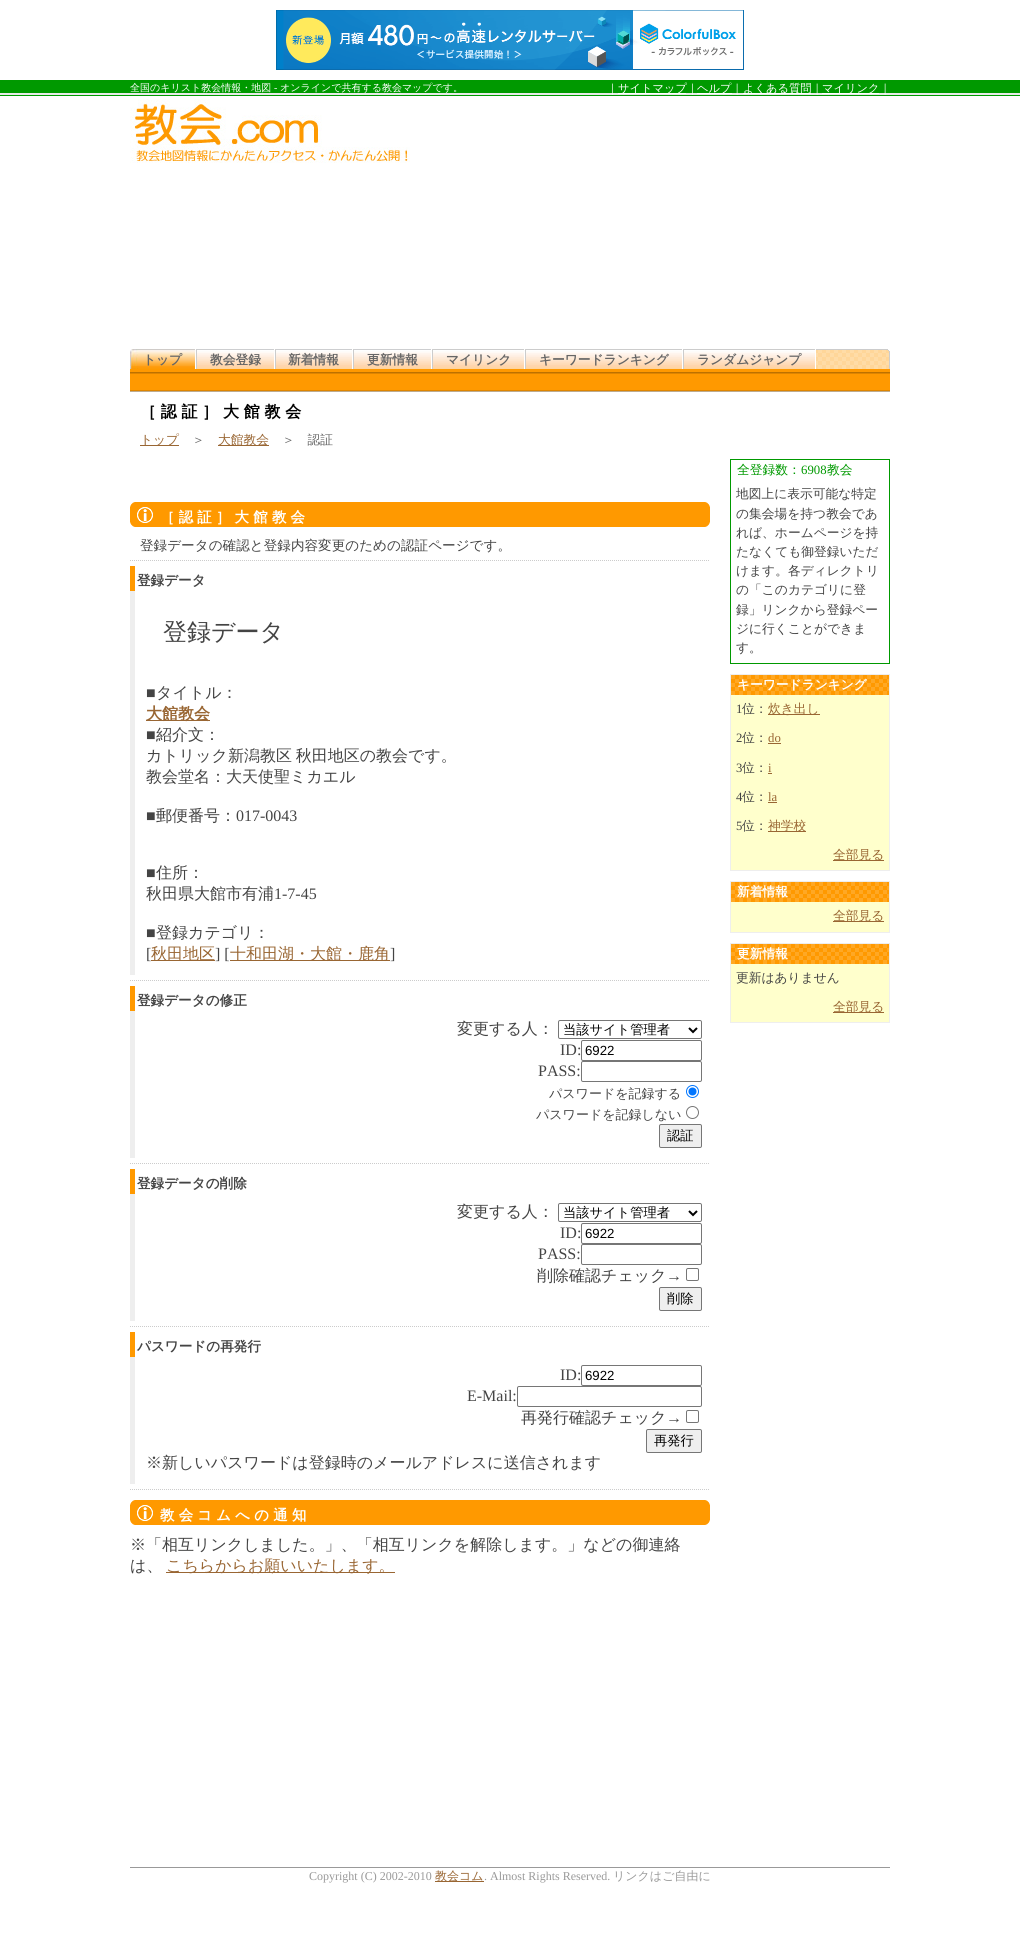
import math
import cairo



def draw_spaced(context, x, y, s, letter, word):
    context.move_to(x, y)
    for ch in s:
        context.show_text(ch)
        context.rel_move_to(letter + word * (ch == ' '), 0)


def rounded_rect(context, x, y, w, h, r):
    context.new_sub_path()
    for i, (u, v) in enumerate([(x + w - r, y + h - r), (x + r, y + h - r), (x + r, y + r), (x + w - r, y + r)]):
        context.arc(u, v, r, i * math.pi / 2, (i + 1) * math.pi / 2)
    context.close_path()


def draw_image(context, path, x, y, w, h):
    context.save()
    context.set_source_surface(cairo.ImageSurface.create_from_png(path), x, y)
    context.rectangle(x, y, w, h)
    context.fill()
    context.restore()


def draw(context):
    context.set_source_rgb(1, 1, 1)
    context.paint()
    draw_image(context, "images/1.png", 276, 10, 468, 60)
    draw_image(context, "images/2.png", 0, 80, 1020, 16)
    context.set_source_rgb(1, 1, 1)
    context.rectangle(618, 93, 68, 1)
    context.fill()
    context.rectangle(697, 93, 35, 1)
    context.fill()
    context.rectangle(743, 93, 68, 1)
    context.fill()
    context.rectangle(822, 93, 57, 1)
    context.fill()
    draw_image(context, "images/3.png", 130, 99, 280, 64)
    draw_image(context, "images/4.png", 433, 349, 457, 20)
    context.set_source_rgb(1, 153 / 255, 0)
    context.rectangle(130, 369, 760, 3)
    context.fill()
    draw_image(context, "images/5.png", 130, 349, 65, 20)
    draw_image(context, "images/6.png", 197, 349, 77, 20)
    context.set_source_rgb(204 / 255, 204 / 255, 204 / 255)
    context.rectangle(196, 349, 1, 20)
    context.fill()
    draw_image(context, "images/7.png", 276, 349, 76, 20)
    context.rectangle(275, 349, 1, 20)
    context.fill()
    draw_image(context, "images/6.png", 354, 349, 77, 20)
    context.rectangle(353, 349, 1, 20)
    context.fill()
    draw_image(context, "images/8.png", 433, 350, 91, 19)
    context.set_source_rgb(1, 1, 1)
    context.rectangle(524, 349, 1, 20)
    context.fill()
    context.set_source_rgb(204 / 255, 204 / 255, 204 / 255)
    context.rectangle(432, 349, 1, 20)
    context.fill()
    draw_image(context, "images/9.png", 526, 350, 156, 19)
    context.set_source_rgb(1, 1, 1)
    context.rectangle(682, 349, 1, 20)
    context.fill()
    context.set_source_rgb(204 / 255, 204 / 255, 204 / 255)
    context.rectangle(525, 349, 1, 20)
    context.fill()
    draw_image(context, "images/10.png", 684, 350, 131, 19)
    context.set_source_rgb(1, 1, 1)
    context.rectangle(815, 349, 1, 20)
    context.fill()
    context.set_source_rgb(204 / 255, 204 / 255, 204 / 255)
    context.rectangle(683, 349, 1, 20)
    context.fill()
    draw_image(context, "images/11.png", 130, 372, 760, 20)
    context.set_source_rgb(153 / 255, 102 / 255, 51 / 255)
    context.rectangle(140, 445, 39, 1)
    context.fill()
    context.rectangle(218, 445, 51, 1)
    context.fill()
    draw_image(context, "images/12.png", 130, 502, 580, 25)
    context.new_path()
    context.move_to(130, 560.5)
    context.line_to(710, 560.5)
    context.set_source_rgb(204 / 255, 204 / 255, 204 / 255)
    context.set_line_width(1)
    context.set_dash([1, 1])
    context.stroke()
    context.new_path()
    context.move_to(130, 980.5)
    context.line_to(710, 980.5)
    context.stroke()
    context.set_source_rgb(238 / 255, 238 / 255, 238 / 255)
    context.rectangle(130, 591, 5, 384)
    context.fill()
    context.set_source_rgb(1, 153 / 255, 0)
    context.rectangle(130, 566, 5, 25)
    context.fill()
    context.set_source_rgb(153 / 255, 102 / 255, 51 / 255)
    context.rectangle(146, 720, 64, 1)
    context.fill()
    context.rectangle(151, 960, 64, 1)
    context.fill()
    context.rectangle(230, 960, 160, 1)
    context.fill()
    context.new_path()
    context.move_to(130, 1163.5)
    context.line_to(710, 1163.5)
    context.set_source_rgb(204 / 255, 204 / 255, 204 / 255)
    context.stroke()
    context.set_source_rgb(238 / 255, 238 / 255, 238 / 255)
    context.rectangle(130, 1011, 5, 147)
    context.fill()
    context.set_source_rgb(1, 153 / 255, 0)
    context.rectangle(130, 986, 5, 25)
    context.fill()
    rounded_rect(context, 558.5, 1020.5, 143, 18, 1.5)
    context.set_source_rgb(118 / 255, 118 / 255, 118 / 255)
    context.set_dash([])
    context.stroke()
    context.new_path()
    context.move_to(689, 1028)
    context.line_to(693, 1032)
    context.line_to(697, 1028)
    context.set_source_rgb(0, 0, 0)
    context.set_line_width(2)
    context.stroke()
    rounded_rect(context, 581.5, 1040.5, 120, 20, 1.5)
    context.set_source_rgb(118 / 255, 118 / 255, 118 / 255)
    context.set_line_width(1)
    context.stroke()
    rounded_rect(context, 581.5, 1061.5, 120, 20, 1.5)
    context.stroke()
    context.arc(692.5, 1091.5, 6, 0, 2 * math.pi)
    context.set_source_rgb(0, 117 / 255, 1)
    context.stroke()
    context.arc(692.5, 1091.5, 4, 0, 2 * math.pi)
    context.fill()
    context.arc(692.5, 1112.5, 6, 0, 2 * math.pi)
    context.set_source_rgb(118 / 255, 118 / 255, 118 / 255)
    context.stroke()
    context.set_source_rgb(239 / 255, 239 / 255, 239 / 255)
    rounded_rect(context, 659.5, 1124.5, 42, 23, 1.5)
    context.fill_preserve()
    context.set_source_rgb(118 / 255, 118 / 255, 118 / 255)
    context.stroke()
    context.new_path()
    context.move_to(130, 1326.5)
    context.line_to(710, 1326.5)
    context.set_source_rgb(204 / 255, 204 / 255, 204 / 255)
    context.set_dash([1, 1])
    context.stroke()
    context.set_source_rgb(238 / 255, 238 / 255, 238 / 255)
    context.rectangle(130, 1194, 5, 127)
    context.fill()
    context.set_source_rgb(1, 153 / 255, 0)
    context.rectangle(130, 1169, 5, 25)
    context.fill()
    rounded_rect(context, 558.5, 1203.5, 143, 18, 1.5)
    context.set_source_rgb(118 / 255, 118 / 255, 118 / 255)
    context.set_dash([])
    context.stroke()
    context.new_path()
    context.move_to(689, 1211)
    context.line_to(693, 1215)
    context.line_to(697, 1211)
    context.set_source_rgb(0, 0, 0)
    context.set_line_width(2)
    context.stroke()
    rounded_rect(context, 581.5, 1223.5, 120, 20, 1.5)
    context.set_source_rgb(118 / 255, 118 / 255, 118 / 255)
    context.set_line_width(1)
    context.stroke()
    rounded_rect(context, 581.5, 1244.5, 120, 20, 1.5)
    context.stroke()
    rounded_rect(context, 686.5, 1268.5, 12, 12, 1.5)
    context.stroke()
    context.set_source_rgb(239 / 255, 239 / 255, 239 / 255)
    rounded_rect(context, 659.5, 1287.5, 42, 23, 1.5)
    context.fill_preserve()
    context.set_source_rgb(118 / 255, 118 / 255, 118 / 255)
    context.stroke()
    context.new_path()
    context.move_to(130, 1489.5)
    context.line_to(710, 1489.5)
    context.set_source_rgb(204 / 255, 204 / 255, 204 / 255)
    context.set_dash([1, 1])
    context.stroke()
    context.set_source_rgb(238 / 255, 238 / 255, 238 / 255)
    context.rectangle(130, 1357, 5, 127)
    context.fill()
    context.set_source_rgb(1, 153 / 255, 0)
    context.rectangle(130, 1332, 5, 25)
    context.fill()
    rounded_rect(context, 581.5, 1365.5, 120, 20, 1.5)
    context.set_source_rgb(118 / 255, 118 / 255, 118 / 255)
    context.set_dash([])
    context.stroke()
    rounded_rect(context, 517.5, 1386.5, 184, 20, 1.5)
    context.stroke()
    rounded_rect(context, 686.5, 1410.5, 12, 12, 1.5)
    context.stroke()
    context.set_source_rgb(239 / 255, 239 / 255, 239 / 255)
    rounded_rect(context, 646.5, 1429.5, 55, 23, 1.5)
    context.fill_preserve()
    context.set_source_rgb(118 / 255, 118 / 255, 118 / 255)
    context.stroke()
    draw_image(context, "images/12.png", 130, 1500, 580, 25)
    context.set_source_rgb(153 / 255, 102 / 255, 51 / 255)
    context.rectangle(166, 1572, 229, 1)
    context.fill()
    context.rectangle(730.5, 459.5, 159, 204)
    context.set_source_rgb(0, 153 / 255, 0)
    context.stroke()
    context.set_source_rgb(1, 1, 204 / 255)
    context.rectangle(731, 695, 158, 175)
    context.fill()
    context.rectangle(730.5, 674.5, 159, 196)
    context.set_source_rgb(238 / 255, 238 / 255, 238 / 255)
    context.stroke()
    draw_image(context, "images/13.png", 731, 675, 158, 20)
    context.set_source_rgb(153 / 255, 102 / 255, 51 / 255)
    context.rectangle(768, 714, 52, 1)
    context.fill()
    context.rectangle(768, 743, 13, 1)
    context.fill()
    context.rectangle(768, 773, 4, 1)
    context.fill()
    context.rectangle(768, 802, 9, 1)
    context.fill()
    context.rectangle(768, 831, 38, 1)
    context.fill()
    context.rectangle(833, 860, 51, 1)
    context.fill()
    context.set_source_rgb(1, 1, 204 / 255)
    context.rectangle(731, 902, 158, 30)
    context.fill()
    context.rectangle(730.5, 881.5, 159, 51)
    context.set_source_rgb(238 / 255, 238 / 255, 238 / 255)
    context.stroke()
    draw_image(context, "images/13.png", 731, 882, 158, 20)
    context.set_source_rgb(153 / 255, 102 / 255, 51 / 255)
    context.rectangle(833, 921, 51, 1)
    context.fill()
    context.set_source_rgb(1, 1, 204 / 255)
    context.rectangle(731, 964, 158, 58)
    context.fill()
    context.rectangle(730.5, 943.5, 159, 79)
    context.set_source_rgb(238 / 255, 238 / 255, 238 / 255)
    context.stroke()
    draw_image(context, "images/13.png", 731, 944, 158, 20)
    context.set_source_rgb(153 / 255, 102 / 255, 51 / 255)
    context.rectangle(833, 1012, 51, 1)
    context.fill()
    context.set_source_rgb(153 / 255, 153 / 255, 153 / 255)
    context.rectangle(130, 1867, 760, 1)
    context.fill()
    context.set_source_rgb(153 / 255, 102 / 255, 51 / 255)
    context.rectangle(435, 1881, 49, 1)
    context.fill()
    context.select_font_face("WenQuanYi Zen Hei Medium")
    context.set_font_size(10)
    context.set_source_rgb(1, 1, 1)
    context.move_to(130, 91)
    context.show_text("全国のキリスト教会情報・地図")
    context.select_font_face("Liberation Serif")
    context.move_to(274, 91)
    context.show_text("-")
    context.select_font_face("WenQuanYi Zen Hei Medium")
    context.move_to(280, 91)
    context.show_text("オンラインで共有する教会マップです。")
    context.set_font_size(11.25)
    context.move_to(607, 92)
    context.show_text("｜")
    context.move_to(618, 92)
    context.show_text("サイトマップ｜")
    context.move_to(697, 92)
    context.show_text("ヘルプ｜")
    context.move_to(743, 92)
    context.show_text("よくある質問｜")
    context.move_to(822, 92)
    context.show_text("マイリンク｜")
    context.select_font_face("WenQuanYi Zen Hei", cairo.FontSlant.NORMAL, cairo.FontWeight.BOLD)
    context.set_font_size(12.75)
    context.set_source_rgb(102 / 255, 102 / 255, 102 / 255)
    context.move_to(143, 364)
    context.show_text("トップ")
    context.move_to(210, 364)
    context.show_text("教会登録")
    context.move_to(288, 364)
    context.show_text("新着情報")
    context.move_to(367, 364)
    context.show_text("更新情報")
    context.move_to(446, 364)
    context.show_text("マイリンク")
    context.move_to(539, 364)
    context.show_text("キーワードランキング")
    context.move_to(697, 364)
    context.show_text("ランダムジャンプ")
    context.set_font_size(16)
    context.set_source_rgb(0, 0, 0)
    draw_spaced(context, 140, 417, "［認証］大館教会", 4.75, 0)
    context.select_font_face("WenQuanYi Zen Hei Medium")
    context.set_font_size(12.75)
    context.set_source_rgb(153 / 255, 102 / 255, 51 / 255)
    context.move_to(140, 444)
    context.show_text("トップ")
    context.set_source_rgb(102 / 255, 102 / 255, 102 / 255)
    context.move_to(192, 444)
    context.show_text("＞")
    context.set_source_rgb(153 / 255, 102 / 255, 51 / 255)
    context.move_to(218, 444)
    context.show_text("大館教会")
    context.set_source_rgb(102 / 255, 102 / 255, 102 / 255)
    context.move_to(282, 444)
    context.show_text("＞　認証")
    context.select_font_face("WenQuanYi Zen Hei", cairo.FontSlant.NORMAL, cairo.FontWeight.BOLD)
    context.set_font_size(14.4)
    context.set_source_rgb(1, 1, 1)
    draw_spaced(context, 160, 522, "［認証］大館教会", 4.25, 0)
    context.select_font_face("WenQuanYi Zen Hei Medium")
    context.set_font_size(13.6)
    context.set_source_rgb(68 / 255, 68 / 255, 68 / 255)
    context.move_to(140, 550)
    context.show_text("登録データの確認と登録内容変更のための認証ページです。")
    context.select_font_face("WenQuanYi Zen Hei", cairo.FontSlant.NORMAL, cairo.FontWeight.BOLD)
    context.move_to(137, 585)
    context.show_text("登録データ")
    context.select_font_face("WenQuanYi Zen Hei Medium")
    context.set_font_size(24)
    context.move_to(163, 640)
    context.show_text("登録データ")
    context.select_font_face("Liberation Serif")
    context.set_font_size(16)
    context.move_to(146, 698)
    context.show_text("■")
    context.select_font_face("WenQuanYi Zen Hei Medium")
    context.move_to(156, 698)
    context.show_text("タイトル：")
    context.select_font_face("WenQuanYi Zen Hei", cairo.FontSlant.NORMAL, cairo.FontWeight.BOLD)
    context.set_source_rgb(153 / 255, 102 / 255, 51 / 255)
    context.move_to(146, 719)
    context.show_text("大館教会")
    context.select_font_face("Liberation Serif")
    context.set_source_rgb(68 / 255, 68 / 255, 68 / 255)
    context.move_to(146, 740)
    context.show_text("■")
    context.select_font_face("WenQuanYi Zen Hei Medium")
    context.move_to(156, 740)
    context.show_text("紹介文：")
    draw_spaced(context, 146, 761, "カトリック新潟教区 秋田地区の教会です。", 0, -1)
    context.move_to(146, 782)
    context.show_text("教会堂名：大天使聖ミカエル")
    context.select_font_face("Liberation Serif")
    context.move_to(146, 821)
    context.show_text("■")
    context.select_font_face("WenQuanYi Zen Hei Medium")
    context.move_to(156, 821)
    context.show_text("郵便番号：")
    context.select_font_face("Liberation Serif")
    context.move_to(236, 821)
    context.show_text("017-0043")
    context.move_to(146, 878)
    context.show_text("■")
    context.select_font_face("WenQuanYi Zen Hei Medium")
    context.move_to(156, 878)
    context.show_text("住所：")
    context.move_to(146, 899)
    context.show_text("秋田県大館市有浦")
    context.select_font_face("Liberation Serif")
    context.move_to(274, 899)
    context.show_text("1-7-45")
    context.move_to(146, 938)
    context.show_text("■")
    context.select_font_face("WenQuanYi Zen Hei Medium")
    context.move_to(156, 938)
    context.show_text("登録カテゴリ：")
    context.select_font_face("Liberation Serif")
    context.move_to(146, 959)
    context.show_text("[")
    context.select_font_face("WenQuanYi Zen Hei Medium")
    context.set_source_rgb(153 / 255, 102 / 255, 51 / 255)
    context.move_to(151, 959)
    context.show_text("秋田地区")
    context.select_font_face("Liberation Serif")
    context.set_source_rgb(68 / 255, 68 / 255, 68 / 255)
    context.move_to(215, 959)
    context.show_text("] [")
    context.select_font_face("WenQuanYi Zen Hei Medium")
    context.set_source_rgb(153 / 255, 102 / 255, 51 / 255)
    context.move_to(230, 959)
    context.show_text("十和田湖・大館・鹿角")
    context.select_font_face("Liberation Serif")
    context.set_source_rgb(68 / 255, 68 / 255, 68 / 255)
    context.move_to(390, 959)
    context.show_text("]")
    context.select_font_face("WenQuanYi Zen Hei", cairo.FontSlant.NORMAL, cairo.FontWeight.BOLD)
    context.set_font_size(13.6)
    context.move_to(137, 1005)
    context.show_text("登録データの修正")
    context.select_font_face("WenQuanYi Zen Hei Medium")
    context.set_font_size(16)
    context.move_to(457, 1034)
    context.show_text("変更する人：")
    context.set_font_size(13.25)
    context.set_source_rgb(0, 0, 0)
    context.move_to(563, 1034)
    context.show_text("当該サイト管理者")
    context.select_font_face("Liberation Serif")
    context.set_font_size(16)
    context.set_source_rgb(68 / 255, 68 / 255, 68 / 255)
    context.move_to(560, 1055)
    context.show_text("ID:")
    context.select_font_face("Liberation Sans")
    context.set_font_size(13.25)
    context.set_source_rgb(0, 0, 0)
    context.move_to(585, 1055)
    context.show_text("6922")
    context.select_font_face("Liberation Serif")
    context.set_font_size(16)
    context.set_source_rgb(68 / 255, 68 / 255, 68 / 255)
    context.move_to(538, 1076)
    context.show_text("PASS:")
    context.select_font_face("WenQuanYi Zen Hei Medium")
    context.set_font_size(13)
    context.move_to(549, 1098)
    context.show_text("パスワードを記録する")
    context.move_to(536, 1119)
    context.show_text("パスワードを記録しない")
    context.set_font_size(13.25)
    context.set_source_rgb(0, 0, 0)
    context.move_to(667, 1140)
    context.show_text("認証")
    context.select_font_face("WenQuanYi Zen Hei", cairo.FontSlant.NORMAL, cairo.FontWeight.BOLD)
    context.set_font_size(13.6)
    context.set_source_rgb(68 / 255, 68 / 255, 68 / 255)
    context.move_to(137, 1188)
    context.show_text("登録データの削除")
    context.select_font_face("WenQuanYi Zen Hei Medium")
    context.set_font_size(16)
    context.move_to(457, 1217)
    context.show_text("変更する人：")
    context.set_font_size(13.25)
    context.set_source_rgb(0, 0, 0)
    context.move_to(563, 1217)
    context.show_text("当該サイト管理者")
    context.select_font_face("Liberation Serif")
    context.set_font_size(16)
    context.set_source_rgb(68 / 255, 68 / 255, 68 / 255)
    context.move_to(560, 1238)
    context.show_text("ID:")
    context.select_font_face("Liberation Sans")
    context.set_font_size(13.25)
    context.set_source_rgb(0, 0, 0)
    context.move_to(585, 1238)
    context.show_text("6922")
    context.select_font_face("Liberation Serif")
    context.set_font_size(16)
    context.set_source_rgb(68 / 255, 68 / 255, 68 / 255)
    context.move_to(538, 1259)
    context.show_text("PASS:")
    context.select_font_face("WenQuanYi Zen Hei Medium")
    context.move_to(537, 1281)
    context.show_text("削除確認チェック")
    context.select_font_face("Liberation Serif")
    context.move_to(666, 1281)
    context.show_text("→")
    context.select_font_face("WenQuanYi Zen Hei Medium")
    context.set_font_size(13.25)
    context.set_source_rgb(0, 0, 0)
    context.move_to(667, 1303)
    context.show_text("削除")
    context.select_font_face("WenQuanYi Zen Hei", cairo.FontSlant.NORMAL, cairo.FontWeight.BOLD)
    context.set_font_size(13.6)
    context.set_source_rgb(68 / 255, 68 / 255, 68 / 255)
    context.move_to(137, 1351)
    context.show_text("パスワードの再発行")
    context.select_font_face("Liberation Serif")
    context.set_font_size(16)
    context.move_to(560, 1380)
    context.show_text("ID:")
    context.select_font_face("Liberation Sans")
    context.set_font_size(13.25)
    context.set_source_rgb(0, 0, 0)
    context.move_to(585, 1380)
    context.show_text("6922")
    context.select_font_face("Liberation Serif")
    context.set_font_size(16)
    context.set_source_rgb(68 / 255, 68 / 255, 68 / 255)
    context.move_to(467, 1401)
    context.show_text("E-Mail:")
    context.select_font_face("WenQuanYi Zen Hei Medium")
    context.move_to(521, 1423)
    context.show_text("再発行確認チェック")
    context.select_font_face("Liberation Serif")
    context.move_to(666, 1423)
    context.show_text("→")
    context.select_font_face("WenQuanYi Zen Hei Medium")
    context.set_font_size(13.25)
    context.set_source_rgb(0, 0, 0)
    context.move_to(654, 1445)
    context.show_text("再発行")
    context.set_font_size(16)
    context.set_source_rgb(68 / 255, 68 / 255, 68 / 255)
    context.move_to(146, 1468)
    context.show_text("※新しいパスワードは登録時のメールアドレスに送信されます")
    context.select_font_face("WenQuanYi Zen Hei", cairo.FontSlant.NORMAL, cairo.FontWeight.BOLD)
    context.set_font_size(14.4)
    context.set_source_rgb(1, 1, 1)
    draw_spaced(context, 160, 1520, "教会コムへの通知", 4.25, 0)
    context.select_font_face("WenQuanYi Zen Hei Medium")
    context.set_font_size(16)
    context.set_source_rgb(68 / 255, 68 / 255, 68 / 255)
    context.move_to(130, 1550)
    context.show_text("※「相互リンクしました。」、「相互リンクを解除します。」などの御連絡")
    context.move_to(130, 1571)
    context.show_text("は、")
    context.set_source_rgb(153 / 255, 102 / 255, 51 / 255)
    context.move_to(166, 1571)
    context.show_text("こちらからお願いいたします。")
    context.set_font_size(12.75)
    context.set_source_rgb(0, 153 / 255, 0)
    context.move_to(737, 474)
    context.show_text("全登録数：")
    context.select_font_face("Liberation Serif")
    context.move_to(801, 474)
    context.show_text("6908")
    context.select_font_face("WenQuanYi Zen Hei Medium")
    context.move_to(827, 474)
    context.show_text("教会")
    context.set_source_rgb(68 / 255, 68 / 255, 68 / 255)
    context.move_to(736, 498)
    context.show_text("地図上に表示可能な特定")
    context.move_to(736, 518)
    context.show_text("の集会場を持つ教会であ")
    context.move_to(736, 537)
    context.show_text("れば、ホームページを持")
    context.move_to(736, 556)
    context.show_text("たなくても御登録いただ")
    context.move_to(736, 575)
    context.show_text("けます。各ディレクトリ")
    context.move_to(736, 594)
    context.show_text("の「このカテゴリに登")
    context.move_to(736, 614)
    context.show_text("録」リンクから登録ペー")
    context.move_to(736, 633)
    context.show_text("ジに行くことができま")
    context.move_to(736, 652)
    context.show_text("す。")
    context.select_font_face("WenQuanYi Zen Hei", cairo.FontSlant.NORMAL, cairo.FontWeight.BOLD)
    context.set_source_rgb(1, 1, 1)
    context.move_to(737, 689)
    context.show_text("キーワードランキング")
    context.select_font_face("Liberation Serif")
    context.set_source_rgb(68 / 255, 68 / 255, 68 / 255)
    context.move_to(736, 713)
    context.show_text("1")
    context.select_font_face("WenQuanYi Zen Hei Medium")
    context.move_to(742, 713)
    context.show_text("位：")
    context.set_source_rgb(153 / 255, 102 / 255, 51 / 255)
    context.move_to(768, 713)
    context.show_text("炊き出し")
    context.select_font_face("Liberation Serif")
    context.set_source_rgb(68 / 255, 68 / 255, 68 / 255)
    context.move_to(736, 742)
    context.show_text("2")
    context.select_font_face("WenQuanYi Zen Hei Medium")
    context.move_to(742, 742)
    context.show_text("位：")
    context.select_font_face("Liberation Serif")
    context.set_source_rgb(153 / 255, 102 / 255, 51 / 255)
    context.move_to(768, 742)
    context.show_text("do")
    context.set_source_rgb(68 / 255, 68 / 255, 68 / 255)
    context.move_to(736, 772)
    context.show_text("3")
    context.select_font_face("WenQuanYi Zen Hei Medium")
    context.move_to(742, 772)
    context.show_text("位：")
    context.select_font_face("Liberation Serif")
    context.set_source_rgb(153 / 255, 102 / 255, 51 / 255)
    context.move_to(768, 772)
    context.show_text("i")
    context.set_source_rgb(68 / 255, 68 / 255, 68 / 255)
    context.move_to(736, 801)
    context.show_text("4")
    context.select_font_face("WenQuanYi Zen Hei Medium")
    context.move_to(742, 801)
    context.show_text("位：")
    context.select_font_face("Liberation Serif")
    context.set_source_rgb(153 / 255, 102 / 255, 51 / 255)
    context.move_to(768, 801)
    context.show_text("la")
    context.set_source_rgb(68 / 255, 68 / 255, 68 / 255)
    context.move_to(736, 830)
    context.show_text("5")
    context.select_font_face("WenQuanYi Zen Hei Medium")
    context.move_to(742, 830)
    context.show_text("位：")
    context.set_source_rgb(153 / 255, 102 / 255, 51 / 255)
    context.move_to(768, 830)
    context.show_text("神学校")
    context.move_to(833, 859)
    context.show_text("全部見る")
    context.select_font_face("WenQuanYi Zen Hei", cairo.FontSlant.NORMAL, cairo.FontWeight.BOLD)
    context.set_source_rgb(1, 1, 1)
    context.move_to(737, 896)
    context.show_text("新着情報")
    context.select_font_face("WenQuanYi Zen Hei Medium")
    context.set_source_rgb(153 / 255, 102 / 255, 51 / 255)
    context.move_to(833, 920)
    context.show_text("全部見る")
    context.select_font_face("WenQuanYi Zen Hei", cairo.FontSlant.NORMAL, cairo.FontWeight.BOLD)
    context.set_source_rgb(1, 1, 1)
    context.move_to(737, 958)
    context.show_text("更新情報")
    context.select_font_face("WenQuanYi Zen Hei Medium")
    context.set_source_rgb(68 / 255, 68 / 255, 68 / 255)
    context.move_to(736, 982)
    context.show_text("更新はありません")
    context.set_source_rgb(153 / 255, 102 / 255, 51 / 255)
    context.move_to(833, 1011)
    context.show_text("全部見る")
    context.select_font_face("Liberation Serif")
    context.set_font_size(12)
    context.set_source_rgb(153 / 255, 153 / 255, 153 / 255)
    context.move_to(309, 1880)
    context.show_text("Copyright (C) 2002-2010")
    context.select_font_face("WenQuanYi Zen Hei Medium")
    context.set_source_rgb(153 / 255, 102 / 255, 51 / 255)
    context.move_to(435, 1880)
    context.show_text("教会コム")
    context.select_font_face("Liberation Serif")
    context.set_source_rgb(153 / 255, 153 / 255, 153 / 255)
    context.move_to(484, 1880)
    context.show_text(". Almost Rights Reserved.")
    context.select_font_face("WenQuanYi Zen Hei Medium")
    context.move_to(613, 1880)
    context.show_text("リンクはご自由に")


surface = cairo.ImageSurface(cairo.Format.RGB24, 1020, 1941)
context = cairo.Context(surface)
options = cairo.FontOptions()
options.set_hint_metrics(cairo.HintMetrics.OFF)
options.set_hint_style(cairo.HintStyle.NONE)
context.set_font_options(options)
context.set_miter_limit(4)
draw(context)
surface.write_to_png("out.png")
